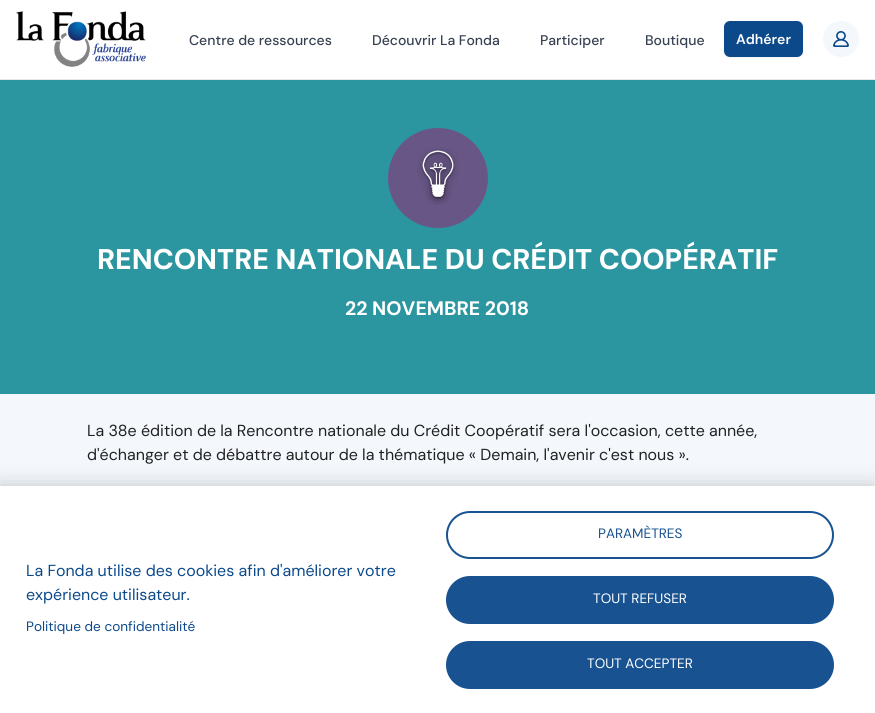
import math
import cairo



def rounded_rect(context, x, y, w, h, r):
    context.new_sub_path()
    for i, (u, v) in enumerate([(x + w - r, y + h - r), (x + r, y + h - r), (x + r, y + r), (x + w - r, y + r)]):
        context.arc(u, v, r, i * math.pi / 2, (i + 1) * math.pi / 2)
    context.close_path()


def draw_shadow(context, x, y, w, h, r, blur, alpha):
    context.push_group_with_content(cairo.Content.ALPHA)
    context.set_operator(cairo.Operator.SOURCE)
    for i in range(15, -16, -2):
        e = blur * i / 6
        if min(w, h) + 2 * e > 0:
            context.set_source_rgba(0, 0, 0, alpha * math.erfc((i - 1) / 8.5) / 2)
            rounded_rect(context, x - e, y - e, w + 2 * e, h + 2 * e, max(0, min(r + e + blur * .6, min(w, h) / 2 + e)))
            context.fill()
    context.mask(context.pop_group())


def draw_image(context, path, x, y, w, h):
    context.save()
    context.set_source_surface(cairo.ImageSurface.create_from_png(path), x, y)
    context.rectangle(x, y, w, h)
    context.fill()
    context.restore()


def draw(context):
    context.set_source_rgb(1, 1, 1)
    context.paint()
    context.set_source_rgb(229 / 255, 231 / 255, 235 / 255)
    context.rectangle(0, 79, 875, 1)
    context.fill()
    draw_image(context, "images/1.png", 16, 11, 130, 56)
    context.set_source_rgb(0, 0, 0)
    draw_shadow(context, 724, 22, 79, 36, 6, 1, 0.05)
    context.set_source_rgb(12 / 255, 73 / 255, 139 / 255)
    rounded_rect(context, 724, 21, 79, 36, 6)
    context.fill()
    context.set_source_rgb(244 / 255, 248 / 255, 252 / 255)
    context.arc(841, 39, 18, 0, 2 * math.pi)
    context.fill()
    draw_image(context, "images/2.png", 833, 31, 16, 16)
    context.set_source_rgb(43 / 255, 150 / 255, 160 / 255)
    context.rectangle(0, 80, 875, 314)
    context.fill()
    context.set_source_rgb(104 / 255, 86 / 255, 134 / 255)
    context.arc(438, 178, 50, 0, 2 * math.pi)
    context.fill()
    draw_image(context, "images/3.png", 417, 148, 42, 57)
    context.set_source_rgb(244 / 255, 248 / 255, 252 / 255)
    context.rectangle(0, 394, 875, 92)
    context.fill()
    context.set_source_rgb(0, 0, 0)
    draw_shadow(context, -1, 485, 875, 227, 0, 10, 0.2)
    context.set_source_rgb(1, 1, 1)
    context.rectangle(0, 486, 875, 227)
    context.fill()
    rounded_rect(context, 447, 512, 386, 46, 23)
    context.set_source_rgb(24 / 255, 82 / 255, 145 / 255)
    context.stroke()
    rounded_rect(context, 447, 577, 386, 46, 23)
    context.fill_preserve()
    context.stroke()
    rounded_rect(context, 447, 642, 386, 46, 23)
    context.fill_preserve()
    context.stroke()
    context.select_font_face("DM Sans Medium")
    context.set_font_size(14)
    context.set_source_rgb(55 / 255, 65 / 255, 81 / 255)
    context.move_to(189, 45)
    context.show_text("Centre de ressources")
    context.move_to(372, 45)
    context.show_text("Découvrir La Fonda")
    context.move_to(540, 45)
    context.show_text("Participer")
    context.move_to(645, 45)
    context.show_text("Boutique")
    context.select_font_face("DM Sans SemiBold")
    context.set_source_rgb(1, 1, 1)
    context.move_to(736, 44)
    context.show_text("Adhérer")
    context.select_font_face("DM Sans ExtraBold")
    context.set_font_size(28.5)
    context.move_to(97, 269)
    context.show_text("RENCONTRE NATIONALE DU CRÉDIT COOPÉRATIF")
    context.select_font_face("DM Sans", cairo.FontSlant.NORMAL, cairo.FontWeight.BOLD)
    context.set_font_size(19.5)
    context.move_to(345, 315)
    context.show_text("22 NOVEMBRE 2018")
    context.select_font_face("DM Sans")
    context.set_font_size(16)
    context.set_source_rgb(33 / 255, 33 / 255, 33 / 255)
    context.move_to(87, 436)
    context.show_text("La 38e édition de la Rencontre nationale du Crédit Coopératif sera l'occasion, cette année,")
    context.move_to(87, 460)
    context.show_text("d'échanger et de débattre autour de la thématique « Demain, l'avenir c'est nous ».")
    context.set_source_rgb(12 / 255, 73 / 255, 139 / 255)
    context.move_to(26, 576)
    context.show_text("La Fonda utilise des cookies afin d'améliorer votre")
    context.move_to(26, 600)
    context.show_text("expérience utilisateur.")
    context.set_font_size(13.6)
    context.move_to(26, 631)
    context.show_text("Politique de confidentialité")
    context.set_source_rgb(24 / 255, 82 / 255, 145 / 255)
    context.move_to(598, 538)
    context.show_text("PARAMÈTRES")
    context.set_source_rgb(1, 1, 1)
    context.move_to(593, 603)
    context.show_text("TOUT REFUSER")
    context.move_to(587, 668)
    context.show_text("TOUT ACCEPTER")


surface = cairo.ImageSurface(cairo.Format.RGB24, 875, 713)
context = cairo.Context(surface)
options = cairo.FontOptions()
options.set_hint_metrics(cairo.HintMetrics.OFF)
options.set_hint_style(cairo.HintStyle.NONE)
context.set_font_options(options)
context.set_miter_limit(4)
draw(context)
surface.write_to_png("out.png")
